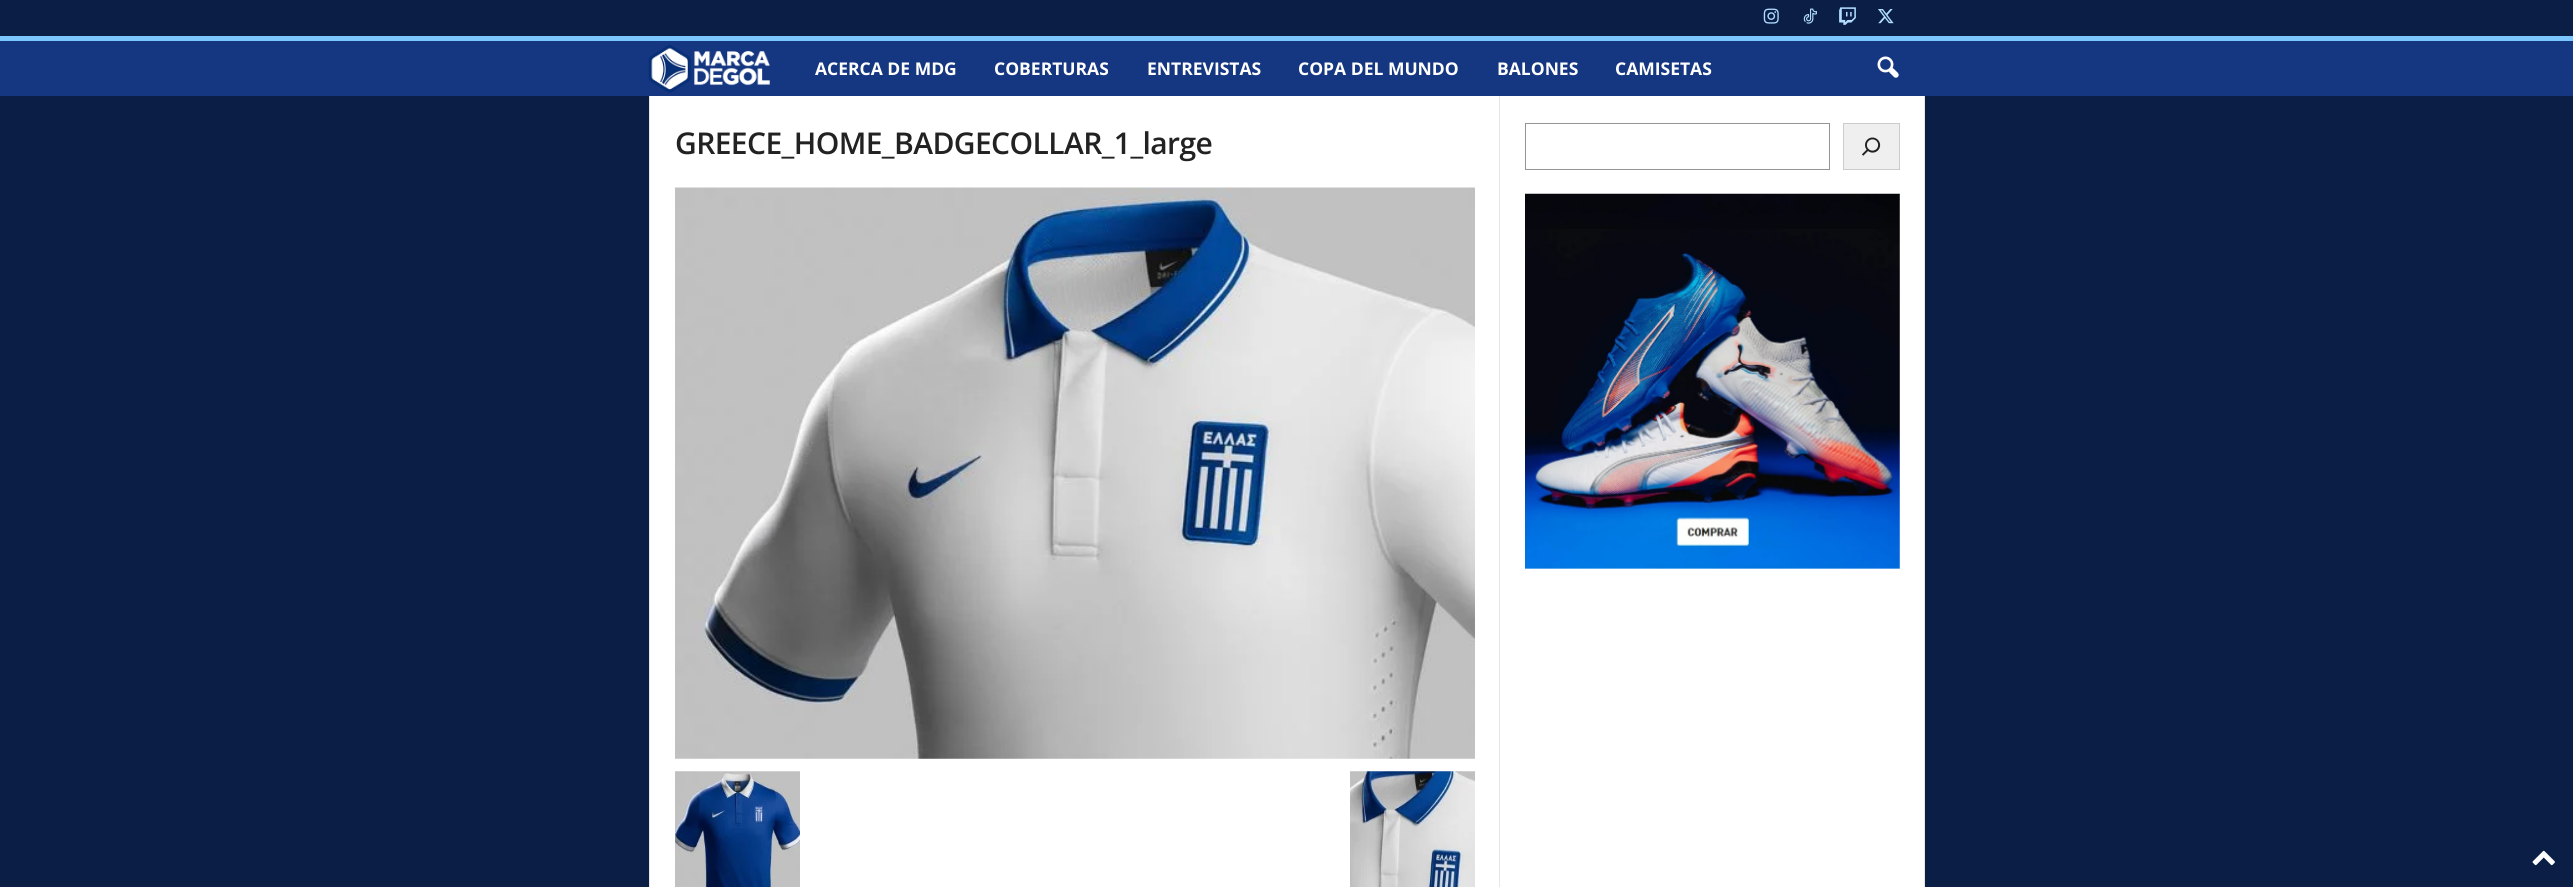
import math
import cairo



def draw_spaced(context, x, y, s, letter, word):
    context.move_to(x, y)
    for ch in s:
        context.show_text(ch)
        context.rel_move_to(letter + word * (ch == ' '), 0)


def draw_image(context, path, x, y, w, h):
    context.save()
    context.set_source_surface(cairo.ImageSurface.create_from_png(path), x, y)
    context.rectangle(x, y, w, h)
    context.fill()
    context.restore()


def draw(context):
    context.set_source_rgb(10 / 255, 30 / 255, 70 / 255)
    context.paint()
    draw_image(context, "images/1.png", 1763, 8, 16, 16)
    draw_image(context, "images/2.png", 1803, 8, 14, 16)
    draw_image(context, "images/3.png", 1839, 7, 17, 18)
    draw_image(context, "images/4.png", 1878, 9, 16, 15)
    context.set_source_rgb(21 / 255, 55 / 255, 129 / 255)
    context.rectangle(0, 41, 2573, 55)
    context.fill()
    context.set_source_rgb(124 / 255, 198 / 255, 1)
    context.rectangle(0, 36, 2573, 5)
    context.fill()
    draw_image(context, "images/5.png", 648, 45, 122, 48)
    draw_image(context, "images/6.png", 1877, 56, 22, 22)
    context.set_source_rgb(1, 1, 1)
    context.rectangle(650, 96, 1274, 791)
    context.fill()
    context.set_source_rgb(230 / 255, 230 / 255, 230 / 255)
    context.rectangle(649, 96, 1, 791)
    context.fill()
    draw_image(context, "images/7.png", 675, 187, 800, 572)
    draw_image(context, "images/8.png", 675, 771, 125, 116)
    draw_image(context, "images/9.png", 1350, 771, 125, 116)
    context.rectangle(1499, 96, 1, 791)
    context.fill()
    context.rectangle(1525.5, 123.5, 304, 46)
    context.set_source_rgb(148 / 255, 148 / 255, 148 / 255)
    context.set_line_width(1)
    context.stroke()
    context.set_source_rgb(239 / 255, 239 / 255, 239 / 255)
    context.rectangle(1843.5, 123.5, 56, 46)
    context.fill_preserve()
    context.set_source_rgb(204 / 255, 204 / 255, 204 / 255)
    context.stroke()
    draw_image(context, "images/10.png", 1862, 137, 19, 19)
    draw_image(context, "images/11.png", 1525, 193, 375, 376)
    context.set_source_rgb(230 / 255, 230 / 255, 230 / 255)
    context.rectangle(1924, 96, 1, 791)
    context.fill()
    draw_image(context, "images/12.png", 2532, 850, 23, 16)
    context.select_font_face("Open Sans", cairo.FontSlant.NORMAL, cairo.FontWeight.BOLD)
    context.set_font_size(17.5)
    context.set_source_rgb(1, 1, 1)
    context.move_to(815, 75)
    context.show_text("ACERCA DE MDG")
    context.move_to(994, 75)
    context.show_text("COBERTURAS")
    context.move_to(1147, 75)
    context.show_text("ENTREVISTAS")
    context.move_to(1298, 75)
    context.show_text("COPA DEL MUNDO")
    context.move_to(1497, 75)
    context.show_text("BALONES")
    context.move_to(1615, 75)
    context.show_text("CAMISETAS")
    context.select_font_face("Open Sans SemiBold")
    context.set_font_size(30)
    context.set_source_rgb(34 / 255, 34 / 255, 34 / 255)
    draw_spaced(context, 675, 154, "GREECE_HOME_BADGECOLLAR_1_large", -0.6, 0)


surface = cairo.ImageSurface(cairo.Format.RGB24, 2573, 887)
context = cairo.Context(surface)
options = cairo.FontOptions()
options.set_hint_metrics(cairo.HintMetrics.OFF)
options.set_hint_style(cairo.HintStyle.NONE)
context.set_font_options(options)
context.set_miter_limit(4)
draw(context)
surface.write_to_png("out.png")
